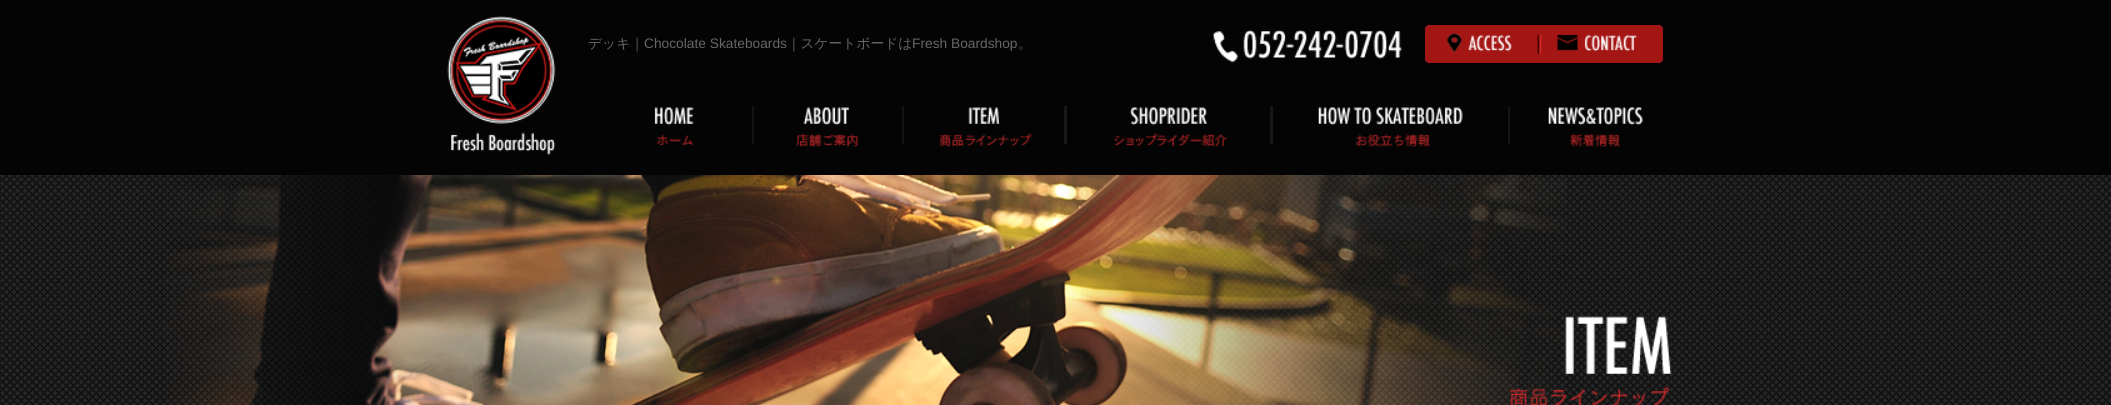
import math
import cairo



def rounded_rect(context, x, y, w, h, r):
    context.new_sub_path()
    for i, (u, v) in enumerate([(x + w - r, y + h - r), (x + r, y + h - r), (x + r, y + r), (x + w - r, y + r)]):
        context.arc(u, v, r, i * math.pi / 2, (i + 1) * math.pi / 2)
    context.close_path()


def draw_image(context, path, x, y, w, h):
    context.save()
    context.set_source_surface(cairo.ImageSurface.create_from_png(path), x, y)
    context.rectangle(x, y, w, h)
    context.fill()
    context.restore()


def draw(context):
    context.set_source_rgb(4 / 255, 4 / 255, 4 / 255)
    context.paint()
    draw_image(context, "images/1.png", 447, 16, 109, 140)
    draw_image(context, "images/2.png", 1212, 30, 190, 33)
    context.set_source_rgb(164 / 255, 22 / 255, 20 / 255)
    rounded_rect(context, 1425, 25, 238, 38, 4)
    context.fill()
    draw_image(context, "images/3.png", 1447, 33, 65, 20)
    draw_image(context, "images/4.png", 1537, 35, 5, 19)
    draw_image(context, "images/5.png", 1557, 34, 80, 18)
    draw_image(context, "images/6.png", 654, 107, 40, 39)
    draw_image(context, "images/7.png", 752, 106, 2, 38)
    draw_image(context, "images/8.png", 796, 107, 62, 40)
    draw_image(context, "images/7.png", 902, 106, 2, 38)
    draw_image(context, "images/9.png", 939, 107, 93, 40)
    context.set_source_rgb(24 / 255, 24 / 255, 24 / 255)
    context.rectangle(1064, 106, 3, 38)
    context.fill()
    draw_image(context, "images/10.png", 1113, 107, 114, 40)
    context.set_source_rgb(22 / 255, 22 / 255, 22 / 255)
    context.rectangle(1270, 106, 3, 38)
    context.fill()
    draw_image(context, "images/11.png", 1318, 107, 145, 40)
    draw_image(context, "images/12.png", 1508, 106, 2, 38)
    draw_image(context, "images/13.png", 1548, 107, 95, 40)
    draw_image(context, "images/14.png", 0, 175, 2111, 230)
    draw_image(context, "images/15.png", 163, 175, 1404, 230)
    draw_image(context, "images/16.png", 1509, 316, 163, 89)
    context.select_font_face("WenQuanYi Zen Hei Medium")
    context.set_font_size(13.75)
    context.set_source_rgb(102 / 255, 102 / 255, 102 / 255)
    context.move_to(588, 48)
    context.show_text("デッキ｜")
    context.select_font_face("Liberation Sans")
    context.move_to(644, 48)
    context.show_text("Chocolate Skateboards")
    context.select_font_face("WenQuanYi Zen Hei Medium")
    context.move_to(787, 48)
    context.show_text("｜スケートボードは")
    context.select_font_face("Liberation Sans")
    context.move_to(912, 48)
    context.show_text("Fresh Boardshop")
    context.select_font_face("WenQuanYi Zen Hei Medium")
    context.move_to(1018, 48)
    context.show_text("。")


surface = cairo.ImageSurface(cairo.Format.RGB24, 2111, 405)
context = cairo.Context(surface)
options = cairo.FontOptions()
options.set_hint_metrics(cairo.HintMetrics.OFF)
options.set_hint_style(cairo.HintStyle.NONE)
context.set_font_options(options)
context.set_miter_limit(4)
draw(context)
surface.write_to_png("out.png")
